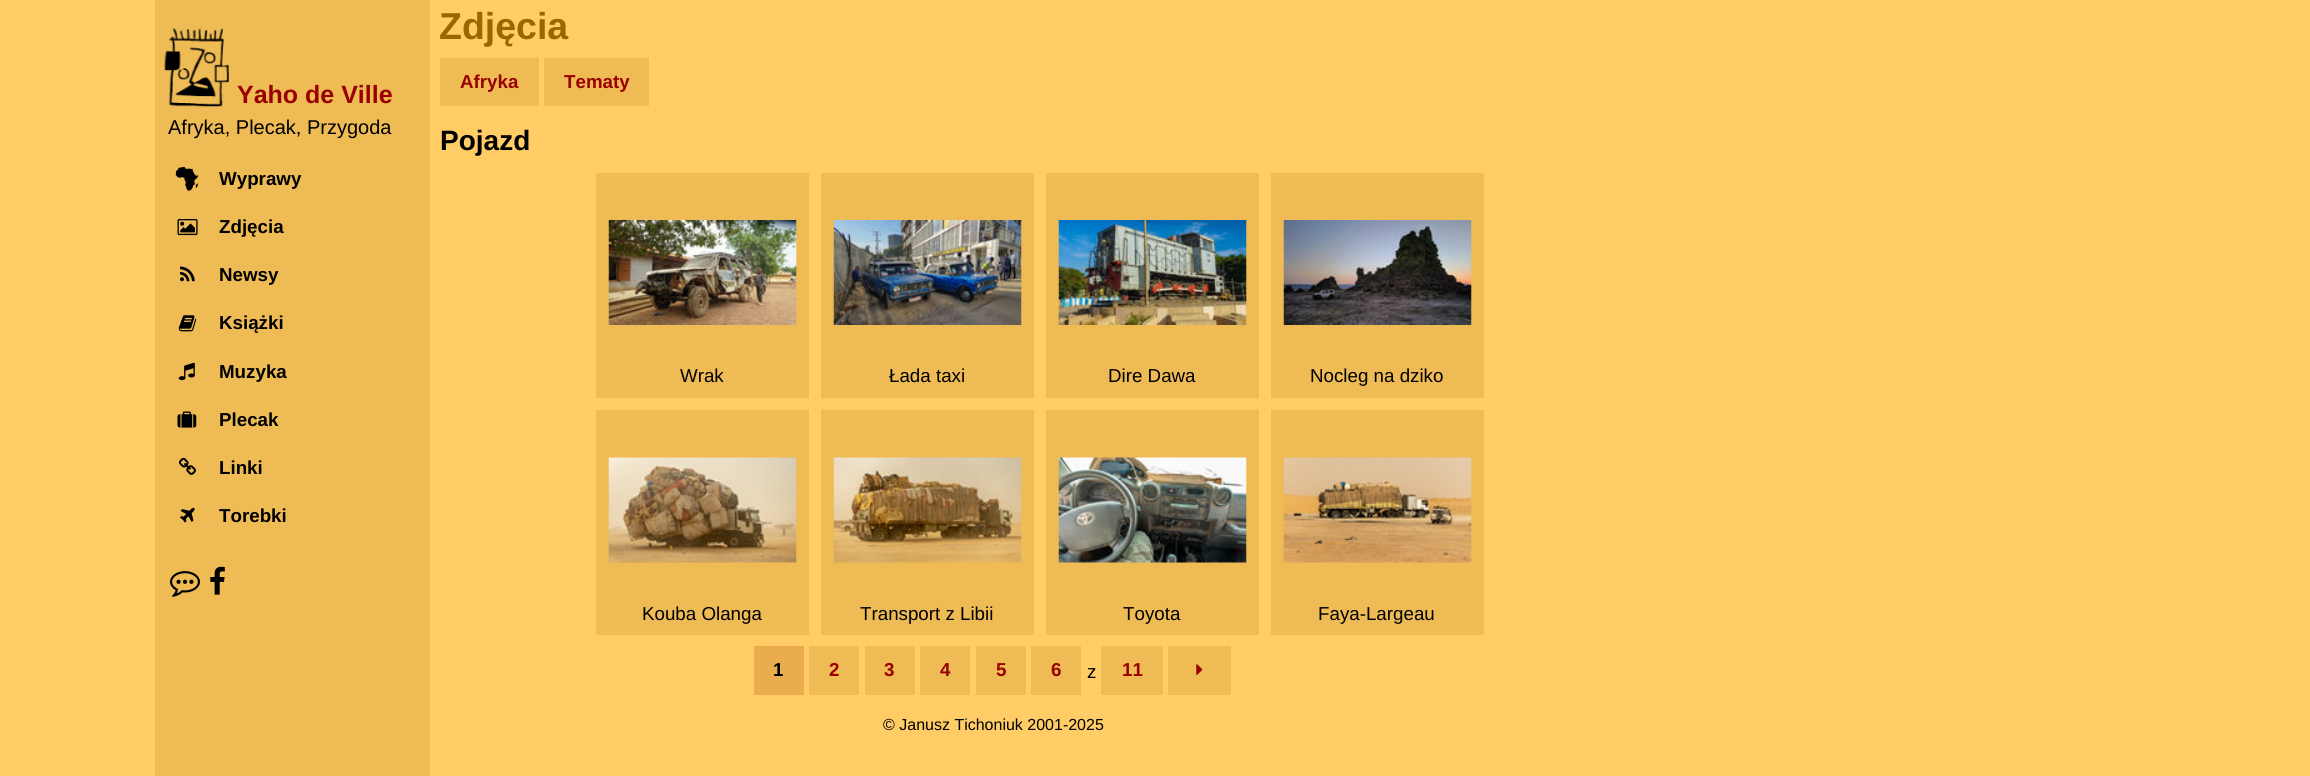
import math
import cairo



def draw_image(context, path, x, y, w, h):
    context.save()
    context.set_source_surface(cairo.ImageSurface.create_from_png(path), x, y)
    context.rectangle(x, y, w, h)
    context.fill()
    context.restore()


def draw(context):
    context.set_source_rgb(1, 204 / 255, 102 / 255)
    context.paint()
    context.set_source_rgb(238 / 255, 187 / 255, 85 / 255)
    context.rectangle(155, 0, 275, 776)
    context.fill()
    draw_image(context, "images/1.png", 164, 28, 65, 79)
    draw_image(context, "images/2.png", 175, 166, 24, 25)
    draw_image(context, "images/3.png", 177, 219, 21, 17)
    draw_image(context, "images/4.png", 180, 266, 15, 16)
    draw_image(context, "images/5.png", 178, 315, 19, 17)
    draw_image(context, "images/6.png", 178, 362, 17, 19)
    draw_image(context, "images/7.png", 177, 411, 20, 17)
    draw_image(context, "images/8.png", 178, 457, 18, 18)
    draw_image(context, "images/9.png", 180, 507, 15, 16)
    draw_image(context, "images/10.png", 170, 571, 30, 26)
    draw_image(context, "images/11.png", 210, 566, 15, 29)
    context.rectangle(440, 58, 99, 48)
    context.fill()
    context.rectangle(544, 58, 105, 48)
    context.fill()
    context.rectangle(596, 173, 213, 225)
    context.fill()
    draw_image(context, "images/12.png", 608, 220, 189, 105)
    context.rectangle(821, 173, 213, 225)
    context.fill()
    draw_image(context, "images/13.png", 833, 220, 189, 105)
    context.rectangle(1046, 173, 213, 225)
    context.fill()
    draw_image(context, "images/14.png", 1058, 220, 189, 105)
    context.rectangle(1271, 173, 213, 225)
    context.fill()
    draw_image(context, "images/15.png", 1283, 220, 189, 105)
    context.rectangle(596, 410, 213, 225)
    context.fill()
    draw_image(context, "images/16.png", 608, 457, 189, 106)
    context.rectangle(821, 410, 213, 225)
    context.fill()
    draw_image(context, "images/17.png", 833, 457, 189, 106)
    context.rectangle(1046, 410, 213, 225)
    context.fill()
    draw_image(context, "images/18.png", 1058, 457, 189, 106)
    context.rectangle(1271, 410, 213, 225)
    context.fill()
    draw_image(context, "images/19.png", 1283, 457, 189, 106)
    context.set_source_rgb(233 / 255, 173 / 255, 78 / 255)
    context.rectangle(754, 646, 50, 49)
    context.fill()
    context.set_source_rgb(238 / 255, 187 / 255, 85 / 255)
    context.rectangle(809, 646, 50, 49)
    context.fill()
    context.rectangle(865, 646, 50, 49)
    context.fill()
    context.rectangle(920, 646, 50, 49)
    context.fill()
    context.rectangle(976, 646, 50, 49)
    context.fill()
    context.rectangle(1031, 646, 50, 49)
    context.fill()
    context.rectangle(1101, 646, 62, 49)
    context.fill()
    context.rectangle(1168, 646, 63, 49)
    context.fill()
    draw_image(context, "images/20.png", 1196, 664, 7, 11)
    context.select_font_face("Liberation Sans", cairo.FontSlant.NORMAL, cairo.FontWeight.BOLD)
    context.set_font_size(25)
    context.set_source_rgb(153 / 255, 0, 0)
    context.move_to(237, 103)
    context.show_text("Yaho de Ville")
    context.select_font_face("Liberation Sans")
    context.set_font_size(20)
    context.set_source_rgb(0, 0, 0)
    context.move_to(168, 134)
    context.show_text("Afryka, Plecak, Przygoda")
    context.select_font_face("Liberation Sans", cairo.FontSlant.NORMAL, cairo.FontWeight.BOLD)
    context.set_font_size(18.75)
    context.move_to(219, 185)
    context.show_text("Wyprawy")
    context.move_to(219, 233)
    context.show_text("Zdjęcia")
    context.move_to(219, 281)
    context.show_text("Newsy")
    context.move_to(219, 329)
    context.show_text("Książki")
    context.move_to(219, 378)
    context.show_text("Muzyka")
    context.move_to(219, 426)
    context.show_text("Plecak")
    context.move_to(219, 474)
    context.show_text("Linki")
    context.move_to(219, 522)
    context.show_text("Torebki")
    context.set_font_size(37.5)
    context.set_source_rgb(153 / 255, 102 / 255, 0)
    context.move_to(439, 39)
    context.show_text("Zdjęcia")
    context.set_font_size(18.75)
    context.set_source_rgb(153 / 255, 0, 0)
    context.move_to(460, 88)
    context.show_text("Afryka")
    context.move_to(564, 88)
    context.show_text("Tematy")
    context.set_font_size(28)
    context.set_source_rgb(0, 0, 0)
    context.move_to(440, 150)
    context.show_text("Pojazd")
    context.select_font_face("Liberation Sans")
    context.set_font_size(18.75)
    context.move_to(680, 382)
    context.show_text("Wrak")
    context.move_to(889, 382)
    context.show_text("Łada taxi")
    context.move_to(1108, 382)
    context.show_text("Dire Dawa")
    context.move_to(1310, 382)
    context.show_text("Nocleg na dziko")
    context.move_to(642, 620)
    context.show_text("Kouba Olanga")
    context.move_to(860, 620)
    context.show_text("Transport z Libii")
    context.move_to(1123, 620)
    context.show_text("Toyota")
    context.move_to(1318, 620)
    context.show_text("Faya-Largeau")
    context.select_font_face("Liberation Sans", cairo.FontSlant.NORMAL, cairo.FontWeight.BOLD)
    context.move_to(773, 676)
    context.show_text("1")
    context.set_source_rgb(153 / 255, 0, 0)
    context.move_to(829, 676)
    context.show_text("2")
    context.move_to(884, 676)
    context.show_text("3")
    context.move_to(940, 676)
    context.show_text("4")
    context.move_to(996, 676)
    context.show_text("5")
    context.move_to(1051, 676)
    context.show_text("6")
    context.select_font_face("Liberation Sans")
    context.set_source_rgb(0, 0, 0)
    context.move_to(1087, 678)
    context.show_text("z")
    context.select_font_face("Liberation Sans", cairo.FontSlant.NORMAL, cairo.FontWeight.BOLD)
    context.set_source_rgb(153 / 255, 0, 0)
    context.move_to(1122, 676)
    context.show_text("11")
    context.select_font_face("Liberation Sans")
    context.set_font_size(16)
    context.set_source_rgb(0, 0, 0)
    context.move_to(883, 730)
    context.show_text("© Janusz Tichoniuk 2001-2025")


surface = cairo.ImageSurface(cairo.Format.RGB24, 2310, 776)
context = cairo.Context(surface)
options = cairo.FontOptions()
options.set_hint_metrics(cairo.HintMetrics.OFF)
options.set_hint_style(cairo.HintStyle.NONE)
context.set_font_options(options)
context.set_miter_limit(4)
draw(context)
surface.write_to_png("out.png")
